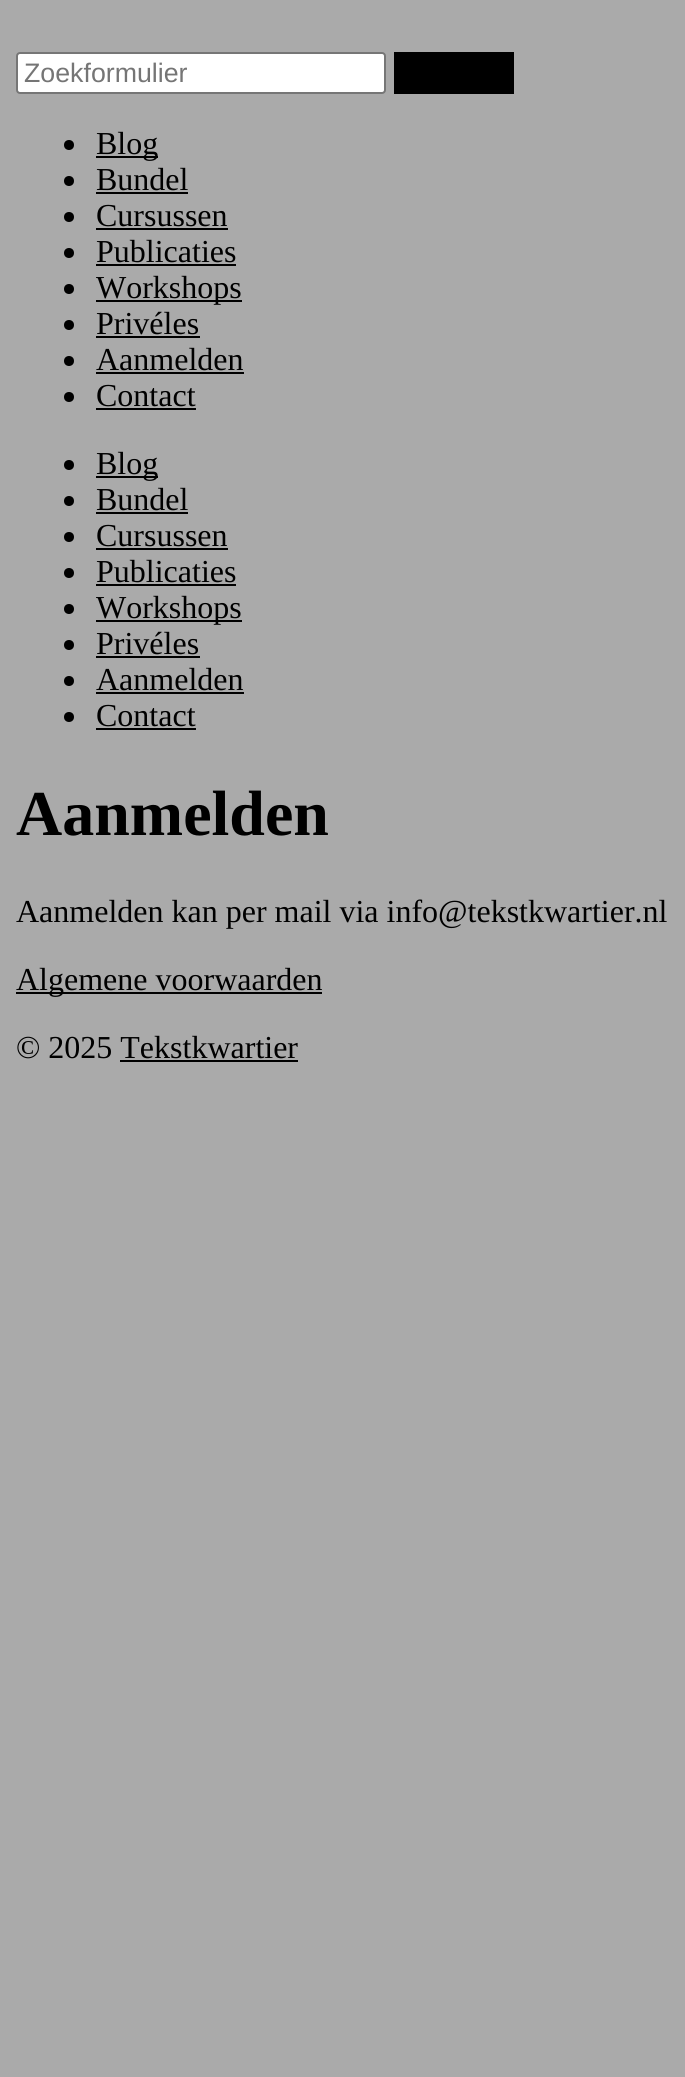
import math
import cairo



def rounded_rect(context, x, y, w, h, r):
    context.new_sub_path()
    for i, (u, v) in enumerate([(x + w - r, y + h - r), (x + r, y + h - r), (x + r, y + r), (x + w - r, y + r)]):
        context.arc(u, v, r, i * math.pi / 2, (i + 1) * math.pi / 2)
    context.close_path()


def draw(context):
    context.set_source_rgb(170 / 255, 170 / 255, 170 / 255)
    context.paint()
    context.set_source_rgb(1, 1, 1)
    rounded_rect(context, 17, 53, 368, 40, 3)
    context.fill_preserve()
    context.set_source_rgb(118 / 255, 118 / 255, 118 / 255)
    context.stroke()
    context.set_source_rgb(0, 0, 0)
    context.rectangle(394, 52, 120, 42)
    context.fill()
    context.arc(69, 145, 5, 0, 2 * math.pi)
    context.fill()
    context.rectangle(96, 156, 62, 2)
    context.fill()
    context.arc(69, 181, 5, 0, 2 * math.pi)
    context.fill()
    context.rectangle(96, 192, 92, 2)
    context.fill()
    context.arc(69, 217, 5, 0, 2 * math.pi)
    context.fill()
    context.rectangle(96, 228, 132, 2)
    context.fill()
    context.arc(69, 253, 5, 0, 2 * math.pi)
    context.fill()
    context.rectangle(96, 264, 140, 2)
    context.fill()
    context.arc(69, 289, 5, 0, 2 * math.pi)
    context.fill()
    context.rectangle(96, 300, 146, 2)
    context.fill()
    context.arc(69, 325, 5, 0, 2 * math.pi)
    context.fill()
    context.rectangle(96, 336, 104, 2)
    context.fill()
    context.arc(69, 361, 5, 0, 2 * math.pi)
    context.fill()
    context.rectangle(96, 372, 148, 2)
    context.fill()
    context.arc(69, 397, 5, 0, 2 * math.pi)
    context.fill()
    context.rectangle(96, 408, 100, 2)
    context.fill()
    context.arc(69, 465, 5, 0, 2 * math.pi)
    context.fill()
    context.rectangle(96, 476, 62, 2)
    context.fill()
    context.arc(69, 501, 5, 0, 2 * math.pi)
    context.fill()
    context.rectangle(96, 512, 92, 2)
    context.fill()
    context.arc(69, 537, 5, 0, 2 * math.pi)
    context.fill()
    context.rectangle(96, 548, 132, 2)
    context.fill()
    context.arc(69, 573, 5, 0, 2 * math.pi)
    context.fill()
    context.rectangle(96, 584, 140, 2)
    context.fill()
    context.arc(69, 609, 5, 0, 2 * math.pi)
    context.fill()
    context.rectangle(96, 620, 146, 2)
    context.fill()
    context.arc(69, 645, 5, 0, 2 * math.pi)
    context.fill()
    context.rectangle(96, 656, 104, 2)
    context.fill()
    context.arc(69, 681, 5, 0, 2 * math.pi)
    context.fill()
    context.rectangle(96, 692, 148, 2)
    context.fill()
    context.arc(69, 717, 5, 0, 2 * math.pi)
    context.fill()
    context.rectangle(96, 728, 100, 2)
    context.fill()
    context.rectangle(16, 992, 306, 2)
    context.fill()
    context.rectangle(120, 1060, 178, 2)
    context.fill()
    context.select_font_face("Liberation Sans")
    context.set_font_size(26.75)
    context.set_source_rgb(117 / 255, 117 / 255, 117 / 255)
    context.move_to(24, 82)
    context.show_text("Zoekformulier")
    context.select_font_face("Liberation Serif")
    context.set_font_size(32)
    context.set_source_rgb(0, 0, 0)
    context.move_to(96, 154)
    context.show_text("Blog")
    context.move_to(96, 190)
    context.show_text("Bundel")
    context.move_to(96, 226)
    context.show_text("Cursussen")
    context.move_to(96, 262)
    context.show_text("Publicaties")
    context.move_to(96, 298)
    context.show_text("Workshops")
    context.move_to(96, 334)
    context.show_text("Privéles")
    context.move_to(96, 370)
    context.show_text("Aanmelden")
    context.move_to(96, 406)
    context.show_text("Contact")
    context.move_to(96, 474)
    context.show_text("Blog")
    context.move_to(96, 510)
    context.show_text("Bundel")
    context.move_to(96, 546)
    context.show_text("Cursussen")
    context.move_to(96, 582)
    context.show_text("Publicaties")
    context.move_to(96, 618)
    context.show_text("Workshops")
    context.move_to(96, 654)
    context.show_text("Privéles")
    context.move_to(96, 690)
    context.show_text("Aanmelden")
    context.move_to(96, 726)
    context.show_text("Contact")
    context.select_font_face("Liberation Serif", cairo.FontSlant.NORMAL, cairo.FontWeight.BOLD)
    context.set_font_size(64)
    context.move_to(16, 835)
    context.show_text("Aanmelden")
    context.select_font_face("Liberation Serif")
    context.set_font_size(32)
    context.move_to(16, 922)
    context.show_text("Aanmelden kan per mail via info@tekstkwartier.nl")
    context.move_to(16, 990)
    context.show_text("Algemene voorwaarden")
    context.move_to(16, 1058)
    context.show_text("© 2025 Tekstkwartier")


surface = cairo.ImageSurface(cairo.Format.RGB24, 685, 2077)
context = cairo.Context(surface)
options = cairo.FontOptions()
options.set_hint_metrics(cairo.HintMetrics.OFF)
options.set_hint_style(cairo.HintStyle.NONE)
context.set_font_options(options)
context.set_miter_limit(4)
draw(context)
surface.write_to_png("out.png")
